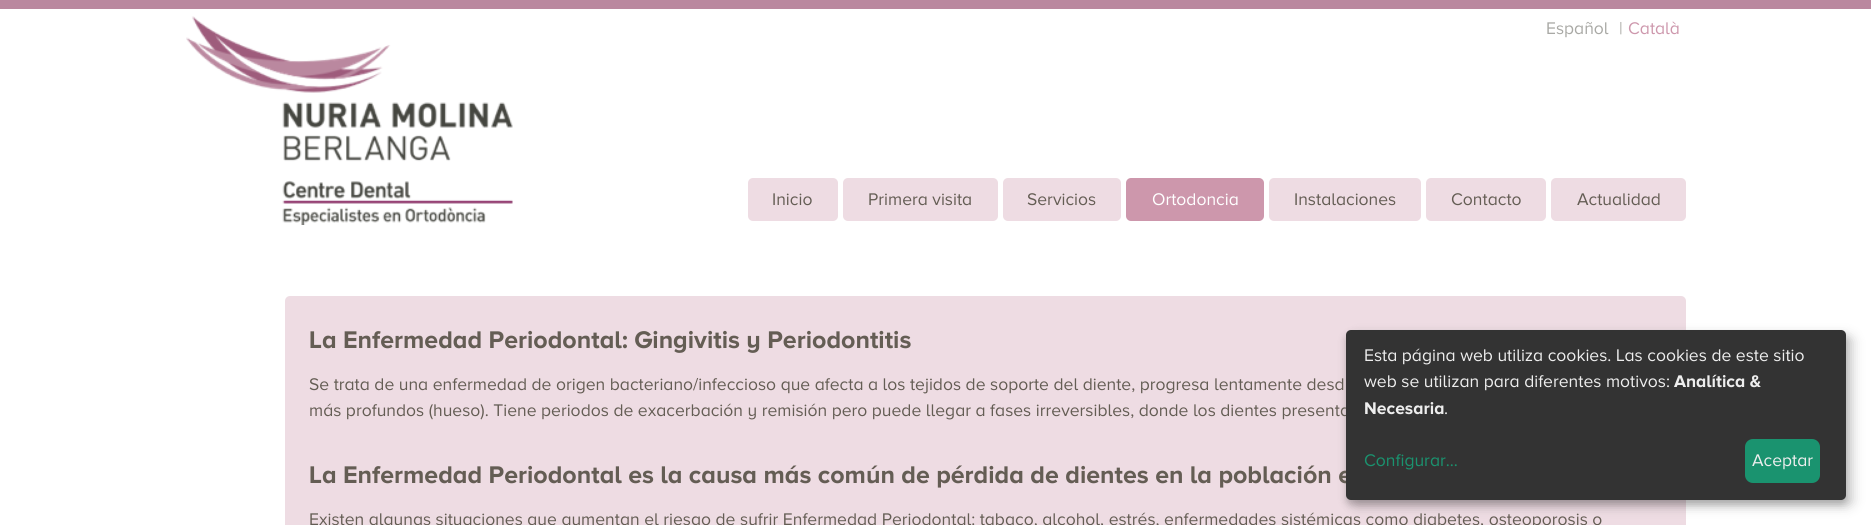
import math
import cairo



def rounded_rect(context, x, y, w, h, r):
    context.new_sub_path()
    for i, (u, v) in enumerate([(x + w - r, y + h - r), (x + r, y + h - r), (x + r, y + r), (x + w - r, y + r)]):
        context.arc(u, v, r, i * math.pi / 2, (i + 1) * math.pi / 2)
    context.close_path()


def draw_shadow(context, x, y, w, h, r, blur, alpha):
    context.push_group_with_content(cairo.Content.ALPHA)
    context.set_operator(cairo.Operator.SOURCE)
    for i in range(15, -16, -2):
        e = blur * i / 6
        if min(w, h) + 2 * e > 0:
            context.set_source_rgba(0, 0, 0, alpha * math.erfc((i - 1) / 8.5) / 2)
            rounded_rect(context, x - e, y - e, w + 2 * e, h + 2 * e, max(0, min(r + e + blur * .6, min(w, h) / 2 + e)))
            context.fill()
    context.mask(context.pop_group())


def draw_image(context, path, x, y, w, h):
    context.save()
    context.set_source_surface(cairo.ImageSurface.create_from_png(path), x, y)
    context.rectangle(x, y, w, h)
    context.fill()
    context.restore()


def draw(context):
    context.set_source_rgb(1, 1, 1)
    context.paint()
    context.set_source_rgb(186 / 255, 136 / 255, 159 / 255)
    context.rectangle(0, 0, 1871, 9)
    context.fill()
    draw_image(context, "images/1.png", 186, 16, 327, 209)
    context.set_source_rgb(238 / 255, 220 / 255, 227 / 255)
    rounded_rect(context, 748, 178, 90, 43, 5)
    context.fill()
    rounded_rect(context, 843, 178, 155, 43, 5)
    context.fill()
    rounded_rect(context, 1003, 178, 118, 43, 5)
    context.fill()
    context.set_source_rgb(205 / 255, 151 / 255, 172 / 255)
    rounded_rect(context, 1126, 178, 138, 43, 5)
    context.fill()
    context.set_source_rgb(238 / 255, 220 / 255, 227 / 255)
    rounded_rect(context, 1269, 178, 152, 43, 5)
    context.fill()
    rounded_rect(context, 1426, 178, 120, 43, 5)
    context.fill()
    rounded_rect(context, 1551, 178, 135, 43, 5)
    context.fill()
    rounded_rect(context, 285, 296, 1401, 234, 5)
    context.fill()
    context.set_source_rgb(0, 0, 0)
    draw_shadow(context, 1353, 336, 500, 170, 5, 6, 0.19)
    draw_shadow(context, 1346, 335, 500, 170, 5, 4, 0.2)
    context.select_font_face("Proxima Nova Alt")
    context.set_font_size(17.5)
    context.set_source_rgb(169 / 255, 169 / 255, 165 / 255)
    context.move_to(1546, 34)
    context.show_text("Español")
    context.move_to(1619, 34)
    context.show_text("|")
    context.set_source_rgb(205 / 255, 151 / 255, 172 / 255)
    context.move_to(1628, 34)
    context.show_text("Català")
    context.set_source_rgb(100 / 255, 93 / 255, 84 / 255)
    context.move_to(772, 205)
    context.show_text("Inicio")
    context.move_to(868, 205)
    context.show_text("Primera visita")
    context.move_to(1027, 205)
    context.show_text("Servicios")
    context.set_source_rgb(1, 1, 1)
    context.move_to(1152, 205)
    context.show_text("Ortodoncia")
    context.set_source_rgb(100 / 255, 93 / 255, 84 / 255)
    context.move_to(1294, 205)
    context.show_text("Instalaciones")
    context.move_to(1451, 205)
    context.show_text("Contacto")
    context.move_to(1577, 205)
    context.show_text("Actualidad")
    context.select_font_face("Proxima Nova Alt", cairo.FontSlant.NORMAL, cairo.FontWeight.BOLD)
    context.set_font_size(25)
    context.move_to(309, 348)
    context.show_text("La Enfermedad Periodontal: Gingivitis y Periodontitis")
    context.select_font_face("Proxima Nova Alt")
    context.set_font_size(17.5)
    context.move_to(309, 390)
    context.show_text("Se trata de una enfermedad de origen bacteriano/infeccioso que afecta a los tejidos de soporte del diente, progresa lentamente desd")
    context.move_to(309, 416)
    context.show_text("más profundos (hueso). Tiene periodos de exacerbación y remisión pero puede llegar a fases irreversibles, donde los dientes presenta")
    context.select_font_face("Proxima Nova Alt", cairo.FontSlant.NORMAL, cairo.FontWeight.BOLD)
    context.set_font_size(25)
    context.move_to(309, 483)
    context.show_text("La Enfermedad Periodontal es la causa más común de pérdida de dientes en la población e")
    context.select_font_face("Proxima Nova Alt")
    context.set_font_size(17.5)
    context.move_to(309, 525)
    context.show_text("Existen algunas situaciones que aumentan el riesgo de sufrir Enfermedad Periodontal: tabaco, alcohol, estrés, enfermedades sistémicas como diabetes, osteoporosis o")
    context.set_source_rgb(51 / 255, 51 / 255, 51 / 255)
    rounded_rect(context, 1346, 330, 500, 170, 5)
    context.fill()
    context.set_source_rgb(238 / 255, 238 / 255, 238 / 255)
    context.move_to(1364, 361)
    context.show_text("Esta página web utiliza cookies. Las cookies de este sitio")
    context.move_to(1364, 387)
    context.show_text("web se utilizan para diferentes motivos:")
    context.select_font_face("Proxima Nova Alt", cairo.FontSlant.NORMAL, cairo.FontWeight.BOLD)
    context.move_to(1674, 387)
    context.show_text("Analítica &")
    context.move_to(1364, 414)
    context.show_text("Necesaria")
    context.select_font_face("Proxima Nova Alt")
    context.move_to(1444, 414)
    context.show_text(".")
    context.set_source_rgb(26 / 255, 147 / 255, 111 / 255)
    context.move_to(1364, 466)
    context.show_text("Configurar...")
    rounded_rect(context, 1745, 439, 75, 44, 8)
    context.fill()
    context.set_source_rgb(238 / 255, 238 / 255, 238 / 255)
    context.move_to(1752, 466)
    context.show_text("Aceptar")


surface = cairo.ImageSurface(cairo.Format.RGB24, 1871, 525)
context = cairo.Context(surface)
options = cairo.FontOptions()
options.set_hint_metrics(cairo.HintMetrics.OFF)
options.set_hint_style(cairo.HintStyle.NONE)
context.set_font_options(options)
context.set_miter_limit(4)
draw(context)
surface.write_to_png("out.png")
